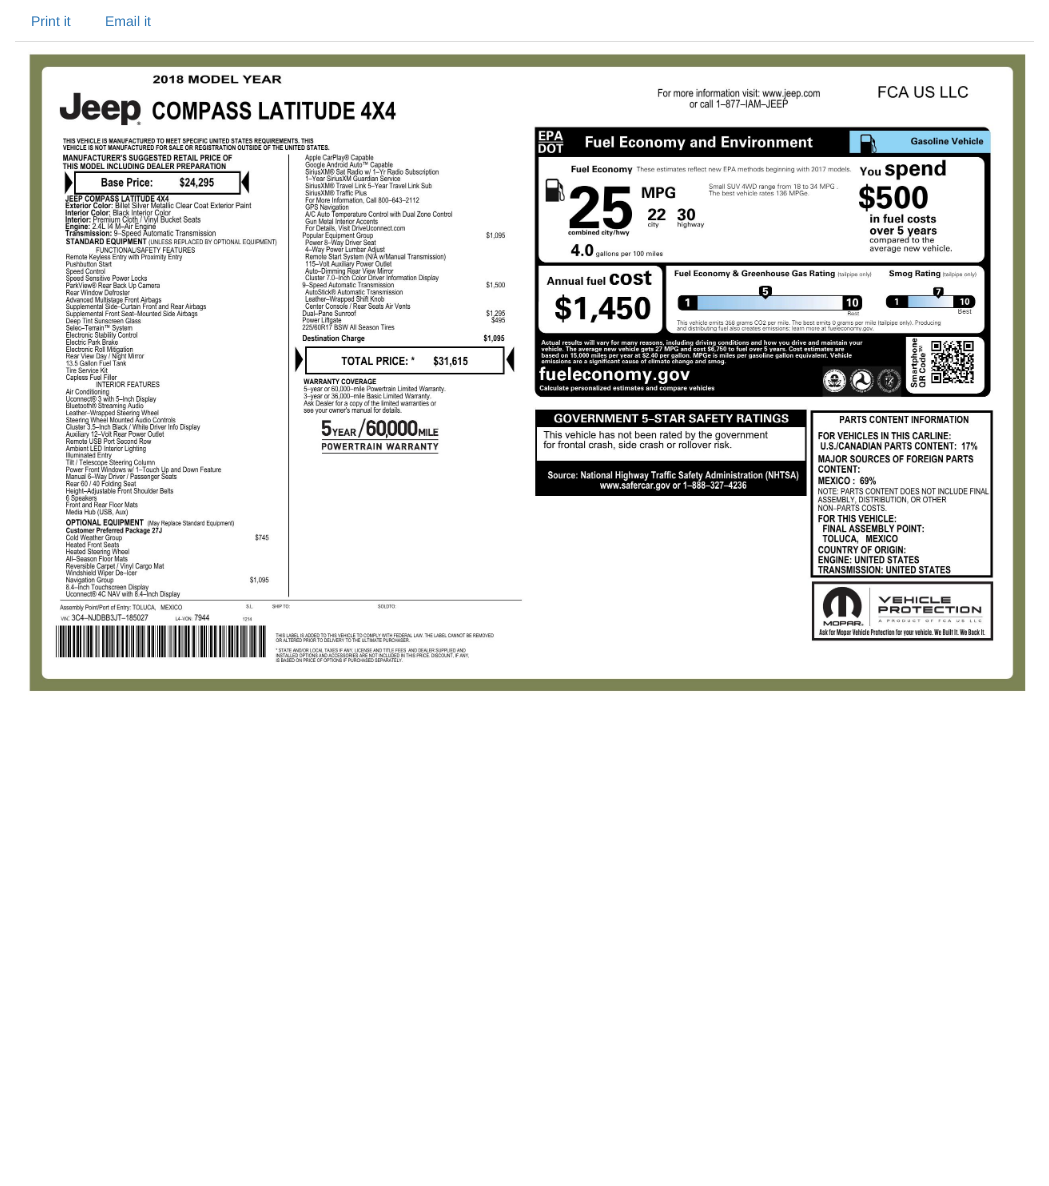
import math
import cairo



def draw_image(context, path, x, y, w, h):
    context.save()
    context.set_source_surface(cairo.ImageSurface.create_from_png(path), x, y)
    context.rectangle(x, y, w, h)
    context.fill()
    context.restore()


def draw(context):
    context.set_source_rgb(1, 1, 1)
    context.paint()
    context.set_source_rgb(221 / 255, 221 / 255, 221 / 255)
    context.rectangle(15, 41, 1019, 1)
    context.fill()
    draw_image(context, "images/1.png", 28, 49, 998, 646)
    context.select_font_face("Liberation Sans")
    context.set_font_size(14)
    context.set_source_rgb(51 / 255, 122 / 255, 183 / 255)
    context.move_to(31, 26)
    context.show_text("Print it")
    context.move_to(105, 26)
    context.show_text("Email it")


surface = cairo.ImageSurface(cairo.Format.RGB24, 1049, 1186)
context = cairo.Context(surface)
options = cairo.FontOptions()
options.set_hint_metrics(cairo.HintMetrics.OFF)
options.set_hint_style(cairo.HintStyle.NONE)
context.set_font_options(options)
context.set_miter_limit(4)
draw(context)
surface.write_to_png("out.png")
